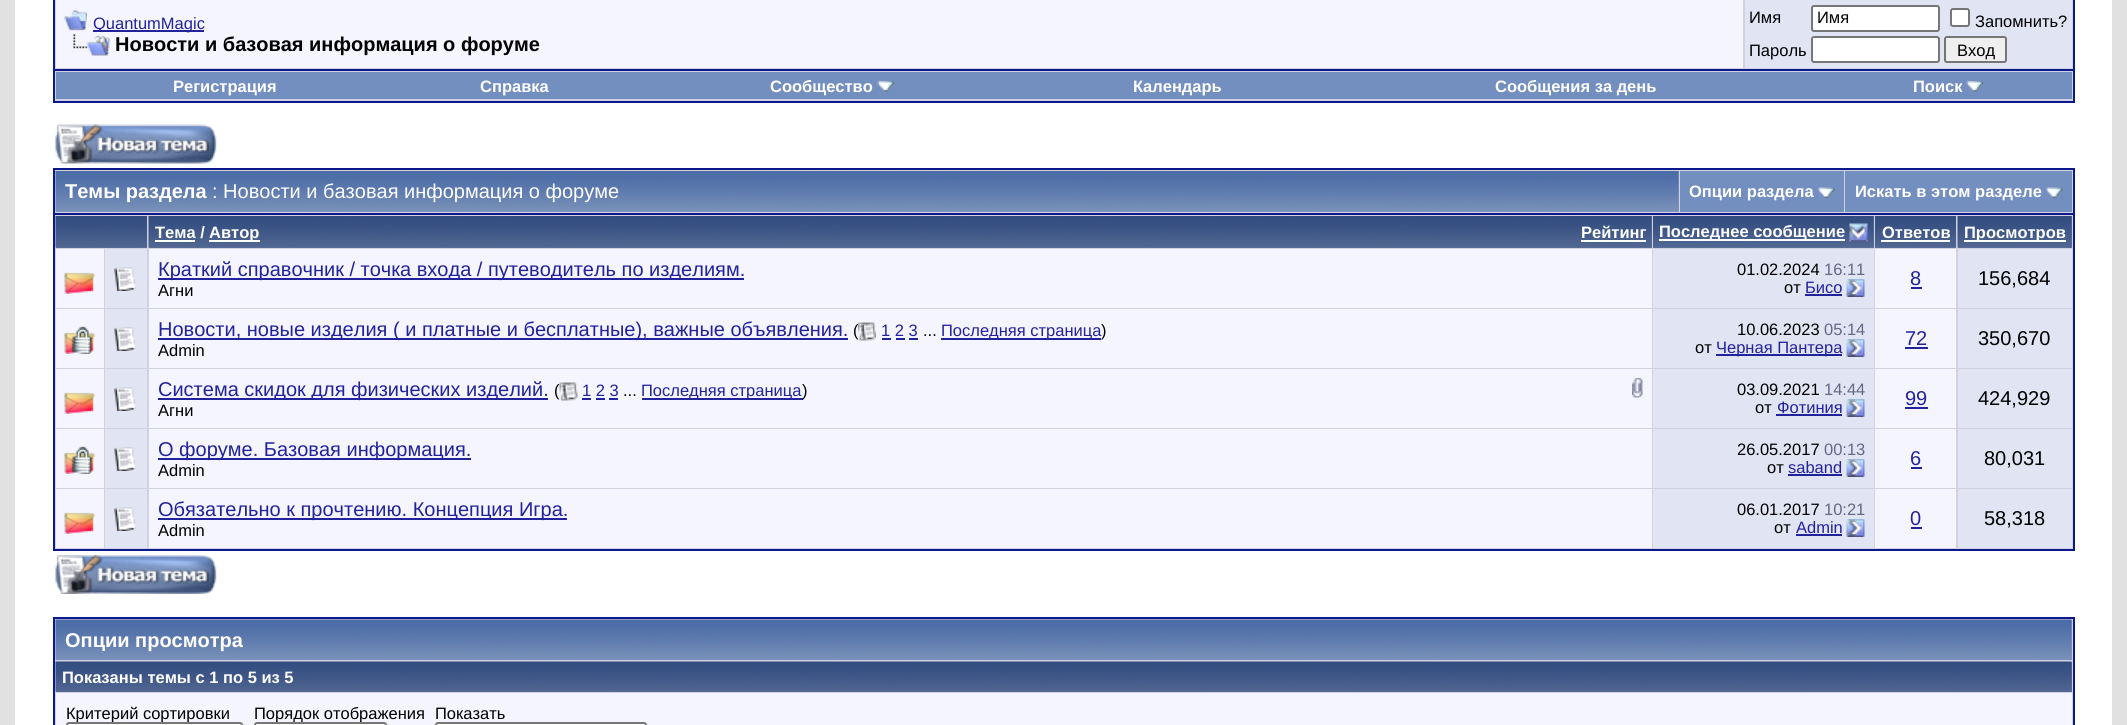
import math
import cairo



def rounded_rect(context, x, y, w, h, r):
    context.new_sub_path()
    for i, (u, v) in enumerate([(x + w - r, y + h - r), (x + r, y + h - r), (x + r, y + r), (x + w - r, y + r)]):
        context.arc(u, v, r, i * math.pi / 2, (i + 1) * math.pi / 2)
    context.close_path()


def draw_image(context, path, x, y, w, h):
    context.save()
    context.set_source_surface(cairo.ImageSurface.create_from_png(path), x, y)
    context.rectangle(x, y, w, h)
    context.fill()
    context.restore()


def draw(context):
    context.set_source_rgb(225 / 255, 225 / 255, 226 / 255)
    context.paint()
    context.set_source_rgb(1, 1, 1)
    context.rectangle(15, 0, 2097, 725)
    context.fill()
    context.set_source_rgb(209 / 255, 209 / 255, 225 / 255)
    context.rectangle(54, -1, 2020, 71)
    context.fill_preserve()
    context.set_source_rgb(11 / 255, 25 / 255, 140 / 255)
    context.stroke()
    context.set_source_rgb(245 / 255, 245 / 255, 1)
    context.rectangle(56, 0, 1687, 68)
    context.fill()
    draw_image(context, "images/1.png", 64, 10, 23, 21)
    context.set_source_rgb(34 / 255, 34 / 255, 156 / 255)
    context.rectangle(93, 30, 111, 2)
    context.fill()
    draw_image(context, "images/2.png", 73, 34, 37, 22)
    context.set_source_rgb(225 / 255, 228 / 255, 242 / 255)
    context.rectangle(1745, 0, 327, 68)
    context.fill()
    context.set_source_rgb(1, 1, 1)
    rounded_rect(context, 1812, 6, 127, 25, 2)
    context.fill_preserve()
    context.set_source_rgb(118 / 255, 118 / 255, 118 / 255)
    context.stroke()
    context.set_source_rgb(1, 1, 1)
    rounded_rect(context, 1951, 9, 18, 17, 2)
    context.fill_preserve()
    context.set_source_rgb(118 / 255, 118 / 255, 118 / 255)
    context.stroke()
    context.set_source_rgb(1, 1, 1)
    rounded_rect(context, 1812, 37, 127, 25, 2)
    context.fill_preserve()
    context.set_source_rgb(118 / 255, 118 / 255, 118 / 255)
    context.stroke()
    context.set_source_rgb(239 / 255, 239 / 255, 239 / 255)
    rounded_rect(context, 1945, 37, 61, 25, 2)
    context.fill_preserve()
    context.set_source_rgb(118 / 255, 118 / 255, 118 / 255)
    context.stroke()
    context.set_source_rgb(209 / 255, 209 / 255, 225 / 255)
    context.rectangle(55, 71, 2018, 30)
    context.fill()
    context.set_source_rgb(11 / 255, 25 / 255, 140 / 255)
    context.rectangle(2073, 71, 2, 31)
    context.fill()
    context.rectangle(53, 101, 2022, 2)
    context.fill()
    context.rectangle(53, 71, 2, 31)
    context.fill()
    context.set_source_rgb(115 / 255, 143 / 255, 191 / 255)
    context.rectangle(56, 72, 2016, 27)
    context.fill()
    draw_image(context, "images/3.png", 877, 81, 17, 11)
    draw_image(context, "images/4.png", 1966, 81, 17, 11)
    draw_image(context, "images/5.png", 55, 124, 162, 40)
    context.set_source_rgb(209 / 255, 209 / 255, 225 / 255)
    context.rectangle(55, 170, 2018, 43)
    context.fill()
    context.set_source_rgb(11 / 255, 25 / 255, 140 / 255)
    context.rectangle(53, 168, 2022, 2)
    context.fill()
    context.rectangle(2073, 168, 2, 45)
    context.fill()
    context.rectangle(53, 168, 2, 45)
    context.fill()
    context.set_source_rgb(134 / 255, 155 / 255, 191 / 255)
    context.rectangle(56, 171, 1623, 41)
    context.fill()
    draw_image(context, "images/6.png", 55, 171, 1624, 41)
    context.set_source_rgb(115 / 255, 143 / 255, 191 / 255)
    context.rectangle(1680, 171, 164, 41)
    context.fill()
    draw_image(context, "images/7.png", 1818, 187, 17, 11)
    context.rectangle(1845, 171, 227, 41)
    context.fill()
    draw_image(context, "images/7.png", 2046, 187, 17, 11)
    context.set_source_rgb(209 / 255, 209 / 255, 225 / 255)
    context.rectangle(54, 214, 2020, 336)
    context.fill_preserve()
    context.set_source_rgb(11 / 255, 25 / 255, 140 / 255)
    context.stroke()
    context.set_source_rgb(92 / 255, 112 / 255, 153 / 255)
    context.rectangle(56, 247, 91, 1)
    context.fill()
    draw_image(context, "images/8.png", 55, 216, 92, 32)
    context.rectangle(149, 216, 1503, 32)
    context.fill()
    draw_image(context, "images/9.png", 148, 216, 1504, 32)
    context.set_source_rgb(1, 1, 1)
    context.rectangle(155, 240, 40, 2)
    context.fill()
    context.rectangle(209, 240, 51, 2)
    context.fill()
    context.rectangle(1581, 240, 65, 2)
    context.fill()
    context.set_source_rgb(92 / 255, 112 / 255, 153 / 255)
    context.rectangle(1653, 216, 221, 32)
    context.fill()
    draw_image(context, "images/10.png", 1653, 216, 221, 32)
    context.set_source_rgb(1, 1, 1)
    context.rectangle(1659, 239, 186, 2)
    context.fill()
    draw_image(context, "images/11.png", 1849, 223, 19, 19)
    context.set_source_rgb(92 / 255, 112 / 255, 153 / 255)
    context.rectangle(1875, 247, 81, 1)
    context.fill()
    draw_image(context, "images/12.png", 1875, 216, 81, 32)
    context.set_source_rgb(1, 1, 1)
    context.rectangle(1881, 240, 69, 2)
    context.fill()
    context.set_source_rgb(92 / 255, 112 / 255, 153 / 255)
    context.rectangle(1958, 216, 114, 32)
    context.fill()
    draw_image(context, "images/13.png", 1957, 216, 115, 32)
    context.set_source_rgb(1, 1, 1)
    context.rectangle(1964, 240, 102, 2)
    context.fill()
    context.set_source_rgb(245 / 255, 245 / 255, 1)
    context.rectangle(56, 249, 48, 59)
    context.fill()
    draw_image(context, "images/14.png", 64, 272, 31, 22)
    context.set_source_rgb(225 / 255, 228 / 255, 242 / 255)
    context.rectangle(105, 249, 42, 59)
    context.fill()
    draw_image(context, "images/15.png", 114, 267, 23, 24)
    context.set_source_rgb(245 / 255, 245 / 255, 1)
    context.rectangle(149, 249, 1503, 59)
    context.fill()
    context.set_source_rgb(34 / 255, 34 / 255, 156 / 255)
    context.rectangle(158, 278, 586, 2)
    context.fill()
    context.set_source_rgb(225 / 255, 228 / 255, 242 / 255)
    context.rectangle(1653, 249, 221, 59)
    context.fill()
    context.set_source_rgb(34 / 255, 34 / 255, 156 / 255)
    context.rectangle(1805, 294, 37, 2)
    context.fill()
    draw_image(context, "images/16.png", 1846, 279, 19, 18)
    context.set_source_rgb(245 / 255, 245 / 255, 1)
    context.rectangle(1875, 249, 81, 59)
    context.fill()
    context.set_source_rgb(34 / 255, 34 / 255, 156 / 255)
    context.rectangle(1911, 287, 11, 2)
    context.fill()
    context.set_source_rgb(225 / 255, 228 / 255, 242 / 255)
    context.rectangle(1958, 249, 114, 59)
    context.fill()
    context.set_source_rgb(245 / 255, 245 / 255, 1)
    context.rectangle(56, 309, 48, 59)
    context.fill()
    draw_image(context, "images/17.png", 64, 326, 31, 28)
    context.set_source_rgb(225 / 255, 228 / 255, 242 / 255)
    context.rectangle(105, 309, 42, 59)
    context.fill()
    draw_image(context, "images/15.png", 114, 327, 23, 24)
    context.set_source_rgb(245 / 255, 245 / 255, 1)
    context.rectangle(149, 309, 1503, 59)
    context.fill()
    context.set_source_rgb(34 / 255, 34 / 255, 156 / 255)
    context.rectangle(158, 338, 690, 2)
    context.fill()
    context.rectangle(882, 338, 9, 2)
    context.fill()
    context.rectangle(896, 338, 9, 2)
    context.fill()
    context.rectangle(909, 338, 9, 2)
    context.fill()
    context.rectangle(941, 338, 160, 2)
    context.fill()
    context.set_source_rgb(225 / 255, 228 / 255, 242 / 255)
    context.rectangle(1653, 309, 221, 59)
    context.fill()
    context.set_source_rgb(34 / 255, 34 / 255, 156 / 255)
    context.rectangle(1716, 354, 126, 2)
    context.fill()
    draw_image(context, "images/16.png", 1846, 339, 19, 18)
    context.set_source_rgb(245 / 255, 245 / 255, 1)
    context.rectangle(1875, 309, 81, 59)
    context.fill()
    context.set_source_rgb(34 / 255, 34 / 255, 156 / 255)
    context.rectangle(1905, 347, 23, 2)
    context.fill()
    context.set_source_rgb(225 / 255, 228 / 255, 242 / 255)
    context.rectangle(1958, 309, 114, 59)
    context.fill()
    context.set_source_rgb(245 / 255, 245 / 255, 1)
    context.rectangle(56, 369, 48, 59)
    context.fill()
    draw_image(context, "images/14.png", 64, 392, 31, 22)
    context.set_source_rgb(225 / 255, 228 / 255, 242 / 255)
    context.rectangle(105, 369, 42, 59)
    context.fill()
    draw_image(context, "images/15.png", 114, 387, 23, 24)
    context.set_source_rgb(245 / 255, 245 / 255, 1)
    context.rectangle(149, 369, 1503, 59)
    context.fill()
    context.set_source_rgb(34 / 255, 34 / 255, 156 / 255)
    context.rectangle(158, 398, 390, 2)
    context.fill()
    context.rectangle(582, 398, 9, 2)
    context.fill()
    context.rectangle(596, 398, 9, 2)
    context.fill()
    context.rectangle(609, 398, 9, 2)
    context.fill()
    context.rectangle(642, 398, 161, 2)
    context.fill()
    draw_image(context, "images/20.png", 1632, 378, 11, 20)
    context.set_source_rgb(225 / 255, 228 / 255, 242 / 255)
    context.rectangle(1653, 369, 221, 59)
    context.fill()
    context.set_source_rgb(34 / 255, 34 / 255, 156 / 255)
    context.rectangle(1776, 414, 66, 2)
    context.fill()
    draw_image(context, "images/16.png", 1846, 399, 19, 18)
    context.set_source_rgb(245 / 255, 245 / 255, 1)
    context.rectangle(1875, 369, 81, 59)
    context.fill()
    context.set_source_rgb(34 / 255, 34 / 255, 156 / 255)
    context.rectangle(1905, 407, 23, 2)
    context.fill()
    context.set_source_rgb(225 / 255, 228 / 255, 242 / 255)
    context.rectangle(1958, 369, 114, 59)
    context.fill()
    context.set_source_rgb(245 / 255, 245 / 255, 1)
    context.rectangle(56, 429, 48, 59)
    context.fill()
    draw_image(context, "images/17.png", 64, 446, 31, 28)
    context.set_source_rgb(225 / 255, 228 / 255, 242 / 255)
    context.rectangle(105, 429, 42, 59)
    context.fill()
    draw_image(context, "images/15.png", 114, 447, 23, 24)
    context.set_source_rgb(245 / 255, 245 / 255, 1)
    context.rectangle(149, 429, 1503, 59)
    context.fill()
    context.set_source_rgb(34 / 255, 34 / 255, 156 / 255)
    context.rectangle(158, 458, 313, 2)
    context.fill()
    context.set_source_rgb(225 / 255, 228 / 255, 242 / 255)
    context.rectangle(1653, 429, 221, 59)
    context.fill()
    context.set_source_rgb(34 / 255, 34 / 255, 156 / 255)
    context.rectangle(1788, 474, 54, 2)
    context.fill()
    draw_image(context, "images/16.png", 1846, 459, 19, 18)
    context.set_source_rgb(245 / 255, 245 / 255, 1)
    context.rectangle(1875, 429, 81, 59)
    context.fill()
    context.set_source_rgb(34 / 255, 34 / 255, 156 / 255)
    context.rectangle(1911, 467, 11, 2)
    context.fill()
    context.set_source_rgb(225 / 255, 228 / 255, 242 / 255)
    context.rectangle(1958, 429, 114, 59)
    context.fill()
    context.set_source_rgb(245 / 255, 245 / 255, 1)
    context.rectangle(56, 489, 48, 59)
    context.fill()
    draw_image(context, "images/14.png", 64, 512, 31, 22)
    context.set_source_rgb(225 / 255, 228 / 255, 242 / 255)
    context.rectangle(105, 489, 42, 59)
    context.fill()
    draw_image(context, "images/15.png", 114, 507, 23, 24)
    context.set_source_rgb(245 / 255, 245 / 255, 1)
    context.rectangle(149, 489, 1503, 59)
    context.fill()
    context.set_source_rgb(34 / 255, 34 / 255, 156 / 255)
    context.rectangle(158, 518, 409, 2)
    context.fill()
    context.set_source_rgb(225 / 255, 228 / 255, 242 / 255)
    context.rectangle(1653, 489, 221, 59)
    context.fill()
    context.set_source_rgb(34 / 255, 34 / 255, 156 / 255)
    context.rectangle(1796, 534, 46, 2)
    context.fill()
    draw_image(context, "images/16.png", 1846, 519, 19, 18)
    context.set_source_rgb(245 / 255, 245 / 255, 1)
    context.rectangle(1875, 489, 81, 59)
    context.fill()
    context.set_source_rgb(34 / 255, 34 / 255, 156 / 255)
    context.rectangle(1911, 527, 11, 2)
    context.fill()
    context.set_source_rgb(225 / 255, 228 / 255, 242 / 255)
    context.rectangle(1958, 489, 114, 59)
    context.fill()
    draw_image(context, "images/21.png", 55, 555, 162, 39)
    context.set_source_rgb(209 / 255, 209 / 255, 225 / 255)
    context.rectangle(54, 618, 2020, 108)
    context.fill_preserve()
    context.set_source_rgb(11 / 255, 25 / 255, 140 / 255)
    context.stroke()
    context.set_source_rgb(134 / 255, 155 / 255, 191 / 255)
    context.rectangle(2071, 620, 1, 40)
    context.fill()
    draw_image(context, "images/22.png", 55, 619, 2017, 41)
    context.set_source_rgb(92 / 255, 112 / 255, 153 / 255)
    context.rectangle(56, 662, 2016, 30)
    context.fill()
    draw_image(context, "images/23.png", 55, 661, 2017, 31)
    context.set_source_rgb(245 / 255, 245 / 255, 1)
    context.rectangle(56, 693, 2016, 32)
    context.fill()
    context.set_source_rgb(1, 1, 1)
    rounded_rect(context, 436, 723, 210, 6, 2)
    context.fill_preserve()
    context.set_source_rgb(118 / 255, 118 / 255, 118 / 255)
    context.stroke()
    context.select_font_face("Liberation Sans")
    context.set_font_size(16.5)
    context.set_source_rgb(34 / 255, 34 / 255, 156 / 255)
    context.move_to(93, 29)
    context.show_text("QuantumMagic")
    context.select_font_face("Liberation Sans", cairo.FontSlant.NORMAL, cairo.FontWeight.BOLD)
    context.set_font_size(20)
    context.set_source_rgb(0, 0, 0)
    context.move_to(115, 51)
    context.show_text("Новости и базовая информация о форуме")
    context.select_font_face("Liberation Sans")
    context.set_font_size(16.5)
    context.move_to(1749, 23)
    context.show_text("Имя")
    context.move_to(1817, 23)
    context.show_text("Имя")
    context.move_to(1975, 27)
    context.show_text("Запомнить?")
    context.move_to(1749, 56)
    context.show_text("Пароль")
    context.move_to(1957, 56)
    context.show_text("Вход")
    context.select_font_face("Liberation Sans", cairo.FontSlant.NORMAL, cairo.FontWeight.BOLD)
    context.set_source_rgb(1, 1, 1)
    context.move_to(173, 92)
    context.show_text("Регистрация")
    context.move_to(480, 92)
    context.show_text("Справка")
    context.move_to(770, 92)
    context.show_text("Сообщество")
    context.move_to(1133, 92)
    context.show_text("Календарь")
    context.move_to(1495, 92)
    context.show_text("Сообщения за день")
    context.move_to(1913, 92)
    context.show_text("Поиск")
    context.set_font_size(20)
    context.move_to(65, 198)
    context.show_text("Темы раздела")
    context.select_font_face("Liberation Sans")
    context.move_to(212, 198)
    context.show_text(": Новости и базовая информация о форуме")
    context.select_font_face("Liberation Sans", cairo.FontSlant.NORMAL, cairo.FontWeight.BOLD)
    context.set_font_size(16.5)
    context.move_to(1689, 197)
    context.show_text("Опции раздела")
    context.move_to(1855, 197)
    context.show_text("Искать в этом разделе")
    context.move_to(155, 238)
    context.show_text("Тема /")
    context.move_to(209, 238)
    context.show_text("Автор")
    context.move_to(1581, 238)
    context.show_text("Рейтинг")
    context.move_to(1659, 237)
    context.show_text("Последнее сообщение")
    context.move_to(1882, 238)
    context.show_text("Ответов")
    context.move_to(1964, 238)
    context.show_text("Просмотров")
    context.select_font_face("Liberation Sans")
    context.set_font_size(20)
    context.set_source_rgb(34 / 255, 34 / 255, 156 / 255)
    context.move_to(158, 276)
    context.show_text("Краткий справочник / точка входа / путеводитель по изделиям.")
    context.set_font_size(16.5)
    context.set_source_rgb(0, 0, 0)
    context.move_to(158, 296)
    context.show_text("Агни")
    context.move_to(1737, 275)
    context.show_text("01.02.2024")
    context.set_source_rgb(102 / 255, 102 / 255, 134 / 255)
    context.move_to(1824, 275)
    context.show_text("16:11")
    context.set_source_rgb(0, 0, 0)
    context.move_to(1784, 293)
    context.show_text("от")
    context.set_source_rgb(34 / 255, 34 / 255, 156 / 255)
    context.move_to(1805, 293)
    context.show_text("Бисо")
    context.set_font_size(20)
    context.move_to(1910, 285)
    context.show_text("8")
    context.set_source_rgb(0, 0, 0)
    context.move_to(1978, 285)
    context.show_text("156,684")
    context.set_source_rgb(34 / 255, 34 / 255, 156 / 255)
    context.move_to(158, 336)
    context.show_text("Новости, новые изделия ( и платные и бесплатные), важные объявления.")
    context.set_font_size(16.5)
    context.set_source_rgb(0, 0, 0)
    context.move_to(853, 336)
    context.show_text("(")
    draw_image(context, "images/18.png", 858, 322, 18, 19)
    context.set_source_rgb(34 / 255, 34 / 255, 156 / 255)
    context.move_to(881, 336)
    context.show_text("1 2 3")
    context.set_source_rgb(0, 0, 0)
    context.move_to(923, 336)
    context.show_text("...")
    context.set_source_rgb(34 / 255, 34 / 255, 156 / 255)
    context.move_to(941, 336)
    context.show_text("Последняя страница")
    context.set_source_rgb(0, 0, 0)
    context.move_to(1101, 336)
    context.show_text(")")
    context.move_to(158, 356)
    context.show_text("Admin")
    context.move_to(1737, 335)
    context.show_text("10.06.2023")
    context.set_source_rgb(102 / 255, 102 / 255, 134 / 255)
    context.move_to(1824, 335)
    context.show_text("05:14")
    context.set_source_rgb(0, 0, 0)
    context.move_to(1695, 353)
    context.show_text("от")
    context.set_source_rgb(34 / 255, 34 / 255, 156 / 255)
    context.move_to(1716, 353)
    context.show_text("Черная Пантера")
    context.set_font_size(20)
    context.move_to(1905, 345)
    context.show_text("72")
    context.set_source_rgb(0, 0, 0)
    context.move_to(1978, 345)
    context.show_text("350,670")
    context.set_source_rgb(34 / 255, 34 / 255, 156 / 255)
    context.move_to(158, 396)
    context.show_text("Система скидок для физических изделий.")
    context.set_font_size(16.5)
    context.set_source_rgb(0, 0, 0)
    context.move_to(554, 396)
    context.show_text("(")
    draw_image(context, "images/19.png", 559, 382, 19, 19)
    context.set_source_rgb(34 / 255, 34 / 255, 156 / 255)
    context.move_to(582, 396)
    context.show_text("1 2 3")
    context.set_source_rgb(0, 0, 0)
    context.move_to(623, 396)
    context.show_text("...")
    context.set_source_rgb(34 / 255, 34 / 255, 156 / 255)
    context.move_to(641, 396)
    context.show_text("Последняя страница")
    context.set_source_rgb(0, 0, 0)
    context.move_to(802, 396)
    context.show_text(")")
    context.move_to(158, 416)
    context.show_text("Агни")
    context.move_to(1737, 395)
    context.show_text("03.09.2021")
    context.set_source_rgb(102 / 255, 102 / 255, 134 / 255)
    context.move_to(1824, 395)
    context.show_text("14:44")
    context.set_source_rgb(0, 0, 0)
    context.move_to(1755, 413)
    context.show_text("от")
    context.set_source_rgb(34 / 255, 34 / 255, 156 / 255)
    context.move_to(1777, 413)
    context.show_text("Фотиния")
    context.set_font_size(20)
    context.move_to(1905, 405)
    context.show_text("99")
    context.set_source_rgb(0, 0, 0)
    context.move_to(1978, 405)
    context.show_text("424,929")
    context.set_source_rgb(34 / 255, 34 / 255, 156 / 255)
    context.move_to(158, 456)
    context.show_text("О форуме. Базовая информация.")
    context.set_font_size(16.5)
    context.set_source_rgb(0, 0, 0)
    context.move_to(158, 476)
    context.show_text("Admin")
    context.move_to(1737, 455)
    context.show_text("26.05.2017")
    context.set_source_rgb(102 / 255, 102 / 255, 134 / 255)
    context.move_to(1824, 455)
    context.show_text("00:13")
    context.set_source_rgb(0, 0, 0)
    context.move_to(1767, 473)
    context.show_text("от")
    context.set_source_rgb(34 / 255, 34 / 255, 156 / 255)
    context.move_to(1788, 473)
    context.show_text("saband")
    context.set_font_size(20)
    context.move_to(1910, 465)
    context.show_text("6")
    context.set_source_rgb(0, 0, 0)
    context.move_to(1984, 465)
    context.show_text("80,031")
    context.set_source_rgb(34 / 255, 34 / 255, 156 / 255)
    context.move_to(158, 516)
    context.show_text("Обязательно к прочтению. Концепция Игра.")
    context.set_font_size(16.5)
    context.set_source_rgb(0, 0, 0)
    context.move_to(158, 536)
    context.show_text("Admin")
    context.move_to(1737, 515)
    context.show_text("06.01.2017")
    context.set_source_rgb(102 / 255, 102 / 255, 134 / 255)
    context.move_to(1824, 515)
    context.show_text("10:21")
    context.set_source_rgb(0, 0, 0)
    context.move_to(1774, 533)
    context.show_text("от")
    context.set_source_rgb(34 / 255, 34 / 255, 156 / 255)
    context.move_to(1796, 533)
    context.show_text("Admin")
    context.set_font_size(20)
    context.move_to(1910, 525)
    context.show_text("0")
    context.set_source_rgb(0, 0, 0)
    context.move_to(1984, 525)
    context.show_text("58,318")
    context.select_font_face("Liberation Sans", cairo.FontSlant.NORMAL, cairo.FontWeight.BOLD)
    context.set_source_rgb(1, 1, 1)
    context.move_to(65, 647)
    context.show_text("Опции просмотра")
    context.set_font_size(16.5)
    context.move_to(62, 683)
    context.show_text("Показаны темы с 1 по 5 из 5")
    context.select_font_face("Liberation Sans")
    context.set_source_rgb(0, 0, 0)
    context.move_to(66, 719)
    context.show_text("Критерий сортировки")
    context.set_source_rgb(1, 1, 1)
    rounded_rect(context, 67, 723, 175, 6, 2)
    context.fill_preserve()
    context.set_source_rgb(118 / 255, 118 / 255, 118 / 255)
    context.stroke()
    context.set_source_rgb(0, 0, 0)
    context.move_to(254, 719)
    context.show_text("Порядок отображения")
    context.set_source_rgb(1, 1, 1)
    rounded_rect(context, 255, 723, 131, 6, 2)
    context.fill_preserve()
    context.set_source_rgb(118 / 255, 118 / 255, 118 / 255)
    context.stroke()
    context.set_source_rgb(0, 0, 0)
    context.move_to(435, 719)
    context.show_text("Показать")


surface = cairo.ImageSurface(cairo.Format.RGB24, 2127, 725)
context = cairo.Context(surface)
options = cairo.FontOptions()
options.set_hint_metrics(cairo.HintMetrics.OFF)
options.set_hint_style(cairo.HintStyle.NONE)
context.set_font_options(options)
context.set_miter_limit(4)
draw(context)
surface.write_to_png("out.png")
